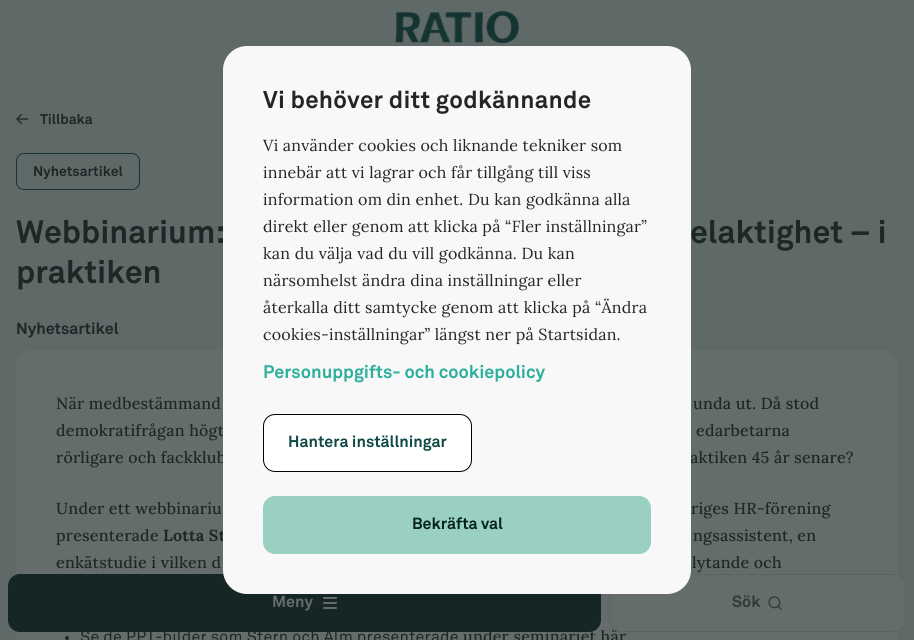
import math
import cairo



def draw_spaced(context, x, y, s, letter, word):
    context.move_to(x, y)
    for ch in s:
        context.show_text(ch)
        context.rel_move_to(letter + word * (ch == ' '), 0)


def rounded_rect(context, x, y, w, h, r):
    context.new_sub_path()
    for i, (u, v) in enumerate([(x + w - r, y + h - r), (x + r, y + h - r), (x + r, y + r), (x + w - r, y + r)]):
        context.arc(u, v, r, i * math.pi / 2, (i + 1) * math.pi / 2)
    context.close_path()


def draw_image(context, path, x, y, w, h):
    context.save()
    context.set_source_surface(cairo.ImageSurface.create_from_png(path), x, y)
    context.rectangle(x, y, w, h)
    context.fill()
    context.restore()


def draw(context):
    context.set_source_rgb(95 / 255, 105 / 255, 104 / 255)
    context.paint()
    draw_image(context, "images/1.png", 395, 11, 124, 32)
    draw_image(context, "images/2.png", 16, 114, 13, 10)
    rounded_rect(context, 16.5, 153.5, 123, 36, 7.5)
    context.set_source_rgb(24 / 255, 51 / 255, 49 / 255)
    context.set_line_width(1)
    context.stroke()
    context.set_source_rgb(101 / 255, 109 / 255, 108 / 255)
    rounded_rect(context, 16, 350, 882, 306, 16)
    context.fill()
    context.set_source_rgb(31 / 255, 39 / 255, 38 / 255)
    context.arc(67, 638, 2, 0, 2 * math.pi)
    context.fill()
    context.select_font_face("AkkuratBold", cairo.FontSlant.NORMAL, cairo.FontWeight.BOLD)
    context.set_font_size(14)
    context.move_to(40, 124)
    context.show_text("Tillbaka")
    context.move_to(33, 176)
    context.show_text("Nyhetsartikel")
    context.set_font_size(32)
    context.move_to(16, 243)
    context.show_text("Webbinarium:")
    context.move_to(690, 243)
    context.show_text("elaktighet – i")
    context.move_to(16, 283)
    context.show_text("praktiken")
    context.set_font_size(16)
    context.move_to(16, 334)
    context.show_text("Nyhetsartikel")
    context.select_font_face("Lora Medium")
    draw_spaced(context, 56, 409, "När medbestämmand", 0.22, 0)
    draw_spaced(context, 693, 409, "unda ut. Då stod", 0.22, 0)
    draw_spaced(context, 56, 436, "demokratifrågan högt", 0.22, 0)
    draw_spaced(context, 696, 436, "edarbetarna", 0.22, 0)
    draw_spaced(context, 56, 463, "rörligare och fackklub", 0.22, 0)
    draw_spaced(context, 690, 463, "aktiken 45 år senare?", 0.22, 0)
    draw_spaced(context, 56, 514, "Under ett webbinariu", 0.22, 0)
    draw_spaced(context, 691, 514, "riges HR-förening", 0.22, 0)
    draw_spaced(context, 56, 541, "presenterade", 0.22, 0)
    context.select_font_face("Lora", cairo.FontSlant.NORMAL, cairo.FontWeight.BOLD)
    draw_spaced(context, 163, 541, "Lotta St", 0.22, 0)
    context.select_font_face("Lora Medium")
    draw_spaced(context, 693, 541, "ngsassistent, en", 0.22, 0)
    draw_spaced(context, 56, 568, "enkätstudie i vilken d", 0.22, 0)
    draw_spaced(context, 692, 568, "lytande och", 0.22, 0)
    context.select_font_face("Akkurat")
    draw_spaced(context, 80, 642, "Se de PPT-bilder som Stern och Alm presenterade", 0.22, 0)
    context.select_font_face("Lora Medium")
    draw_spaced(context, 463, 642, "under seminariet här", 0.22, 0)
    context.set_source_rgb(21 / 255, 38 / 255, 37 / 255)
    rounded_rect(context, 8.5, 574.5, 592, 57, 11.5)
    context.fill_preserve()
    context.stroke()
    context.select_font_face("AkkuratBold", cairo.FontSlant.NORMAL, cairo.FontWeight.BOLD)
    context.set_source_rgb(101 / 255, 109 / 255, 108 / 255)
    context.move_to(272, 607)
    context.show_text("Meny")
    rounded_rect(context, 323, 597, 14, 2, 1)
    context.fill()
    rounded_rect(context, 323, 602, 14, 2, 1)
    context.fill()
    rounded_rect(context, 323, 607, 14, 2, 1)
    context.fill()
    rounded_rect(context, 609.5, 574.5, 296, 57, 11.5)
    context.fill_preserve()
    context.set_source_rgb(91 / 255, 99 / 255, 99 / 255)
    context.stroke()
    context.set_source_rgb(248 / 255, 248 / 255, 248 / 255)
    rounded_rect(context, 223, 46, 468, 548, 24)
    context.fill()
    context.set_source_rgb(153 / 255, 208 / 255, 193 / 255)
    rounded_rect(context, 263.5, 496.5, 387, 57, 11.5)
    context.fill_preserve()
    context.stroke()
    context.set_source_rgb(6 / 255, 34 / 255, 32 / 255)
    context.move_to(412, 529)
    context.show_text("Bekräfta val")
    context.set_source_rgb(1, 1, 1)
    rounded_rect(context, 263.5, 414.5, 208, 57, 11.5)
    context.fill_preserve()
    context.set_source_rgb(0, 0, 0)
    context.stroke()
    context.set_source_rgb(15 / 255, 73 / 255, 69 / 255)
    context.move_to(288, 447)
    context.show_text("Hantera inställningar")
    context.set_font_size(18)
    context.set_source_rgb(45 / 255, 175 / 255, 156 / 255)
    context.move_to(263, 378)
    context.show_text("Personuppgifts- och cookiepolicy")
    context.select_font_face("Lora")
    context.set_font_size(16)
    context.set_source_rgb(37 / 255, 37 / 255, 37 / 255)
    draw_spaced(context, 263, 340, "cookies-inställningar” längst ner på Startsidan.", 0.22, 0)
    draw_spaced(context, 263, 313, "återkalla ditt samtycke genom att klicka på “Ändra", 0.22, 0)
    draw_spaced(context, 263, 286, "närsomhelst ändra dina inställningar eller", 0.22, 0)
    draw_spaced(context, 263, 259, "kan du välja vad du vill godkänna. Du kan", 0.22, 0)
    draw_spaced(context, 263, 232, "direkt eller genom att klicka på “Fler inställningar”", 0.22, 0)
    draw_spaced(context, 263, 205, "information om din enhet. Du kan godkänna alla", 0.22, 0)
    draw_spaced(context, 263, 178, "innebär att vi lagrar och får tillgång till viss", 0.22, 0)
    draw_spaced(context, 263, 151, "Vi använder cookies och liknande tekniker som", 0.22, 0)
    context.select_font_face("AkkuratBold", cairo.FontSlant.NORMAL, cairo.FontWeight.BOLD)
    context.set_font_size(24)
    draw_spaced(context, 263, 108, "Vi behöver ditt godkännande", 0.3, 0)
    context.set_font_size(16)
    context.set_source_rgb(48 / 255, 57 / 255, 56 / 255)
    context.move_to(732, 607)
    context.show_text("Sök")
    draw_image(context, "images/3.png", 768, 596, 14, 14)


surface = cairo.ImageSurface(cairo.Format.RGB24, 914, 640)
context = cairo.Context(surface)
options = cairo.FontOptions()
options.set_hint_metrics(cairo.HintMetrics.OFF)
options.set_hint_style(cairo.HintStyle.NONE)
context.set_font_options(options)
context.set_miter_limit(4)
draw(context)
surface.write_to_png("out.png")
